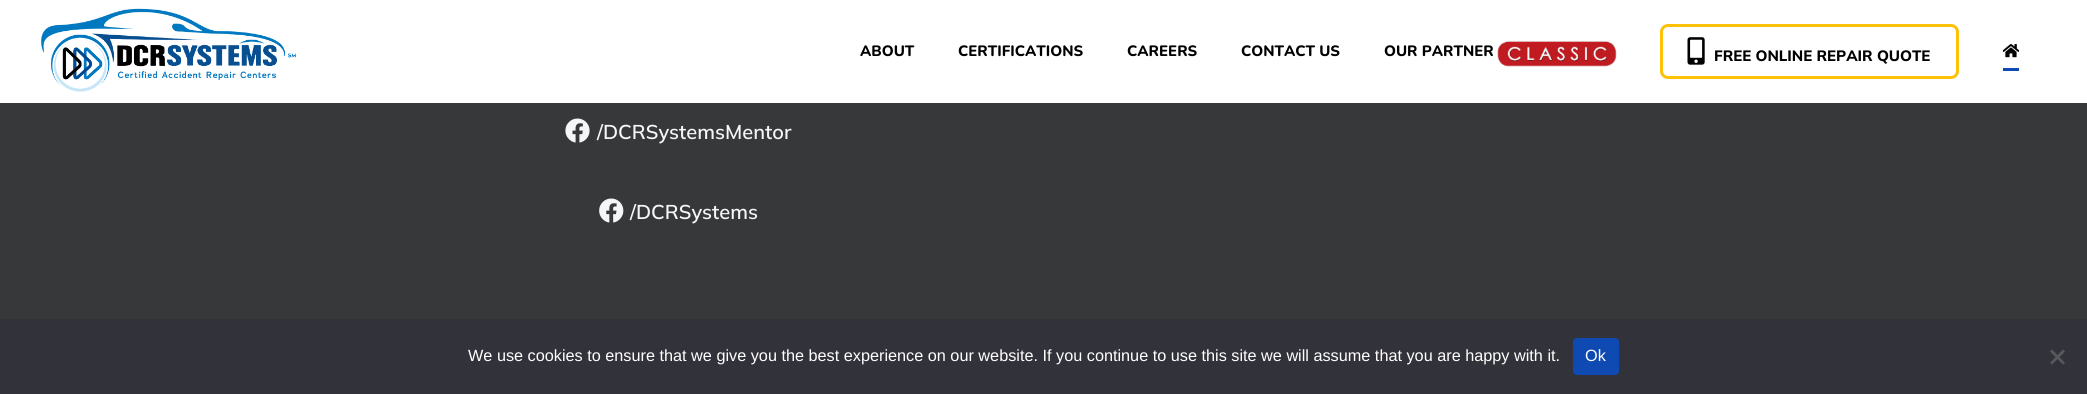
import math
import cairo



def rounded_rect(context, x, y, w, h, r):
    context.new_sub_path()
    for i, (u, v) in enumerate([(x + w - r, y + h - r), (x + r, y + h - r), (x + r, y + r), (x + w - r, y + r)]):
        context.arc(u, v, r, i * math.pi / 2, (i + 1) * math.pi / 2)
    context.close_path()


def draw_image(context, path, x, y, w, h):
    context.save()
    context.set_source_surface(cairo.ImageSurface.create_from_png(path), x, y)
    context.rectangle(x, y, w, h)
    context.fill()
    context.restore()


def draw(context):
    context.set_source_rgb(54 / 255, 56 / 255, 57 / 255)
    context.paint()
    context.set_source_rgb(1, 1, 1)
    context.rectangle(0, 0, 2087, 103)
    context.fill()
    draw_image(context, "images/1.png", 41, 8, 255, 84)
    draw_image(context, "images/2.png", 1497, 41, 120, 26)
    rounded_rect(context, 1661.5, 25.5, 296, 52, 6.5)
    context.set_source_rgb(1, 193 / 255, 7 / 255)
    context.set_line_width(3)
    context.stroke()
    draw_image(context, "images/3.png", 1687, 37, 18, 28)
    draw_image(context, "images/4.png", 2003, 44, 16, 14)
    context.set_source_rgb(14 / 255, 74 / 255, 178 / 255)
    context.rectangle(2003, 68, 16, 3)
    context.fill()
    draw_image(context, "images/5.png", 565, 118, 25, 25)
    draw_image(context, "images/6.png", 599, 198, 25, 25)
    context.set_source_rgb(50 / 255, 50 / 255, 58 / 255)
    context.rectangle(0, 319, 2087, 75)
    context.fill()
    context.set_source_rgb(14 / 255, 74 / 255, 178 / 255)
    rounded_rect(context, 1573, 338, 46, 37, 4)
    context.fill()
    context.set_source_rgb(89 / 255, 89 / 255, 93 / 255)
    context.new_path()
    context.move_to(2063, 349.5)
    context.line_to(2065, 351.5)
    context.line_to(2052, 364.5)
    context.line_to(2050, 363)
    context.close_path()
    context.fill()
    context.new_path()
    context.move_to(2050, 351.5)
    context.line_to(2052, 349.5)
    context.line_to(2065, 363)
    context.line_to(2063, 364.5)
    context.close_path()
    context.fill()
    context.select_font_face("Nunito ExtraLight")
    context.set_font_size(15)
    context.set_source_rgb(0, 0, 0)
    context.move_to(860, 56)
    context.show_text("ABOUT")
    context.move_to(958, 56)
    context.show_text("CERTIFICATIONS")
    context.move_to(1127, 56)
    context.show_text("CAREERS")
    context.move_to(1241, 56)
    context.show_text("CONTACT US")
    context.move_to(1384, 56)
    context.show_text("OUR PARTNER")
    context.select_font_face("Mulish ExtraBold")
    context.move_to(1714, 61)
    context.show_text("FREE ONLINE REPAIR QUOTE")
    context.select_font_face("Mulish SemiBold")
    context.set_font_size(20)
    context.set_source_rgb(245 / 255, 246 / 255, 247 / 255)
    context.move_to(597, 139)
    context.show_text("/DCRSystemsMentor")
    context.move_to(630, 219)
    context.show_text("/DCRSystems")
    context.select_font_face("Liberation Sans")
    context.set_font_size(16.25)
    context.set_source_rgb(1, 1, 1)
    context.move_to(468, 361)
    context.show_text("We use cookies to ensure that we give you the best experience on our website. If you continue to use this site we will assume that you are happy with it.")
    context.move_to(1585, 361)
    context.show_text("Ok")


surface = cairo.ImageSurface(cairo.Format.RGB24, 2087, 394)
context = cairo.Context(surface)
options = cairo.FontOptions()
options.set_hint_metrics(cairo.HintMetrics.OFF)
options.set_hint_style(cairo.HintStyle.NONE)
context.set_font_options(options)
context.set_miter_limit(4)
draw(context)
surface.write_to_png("out.png")
